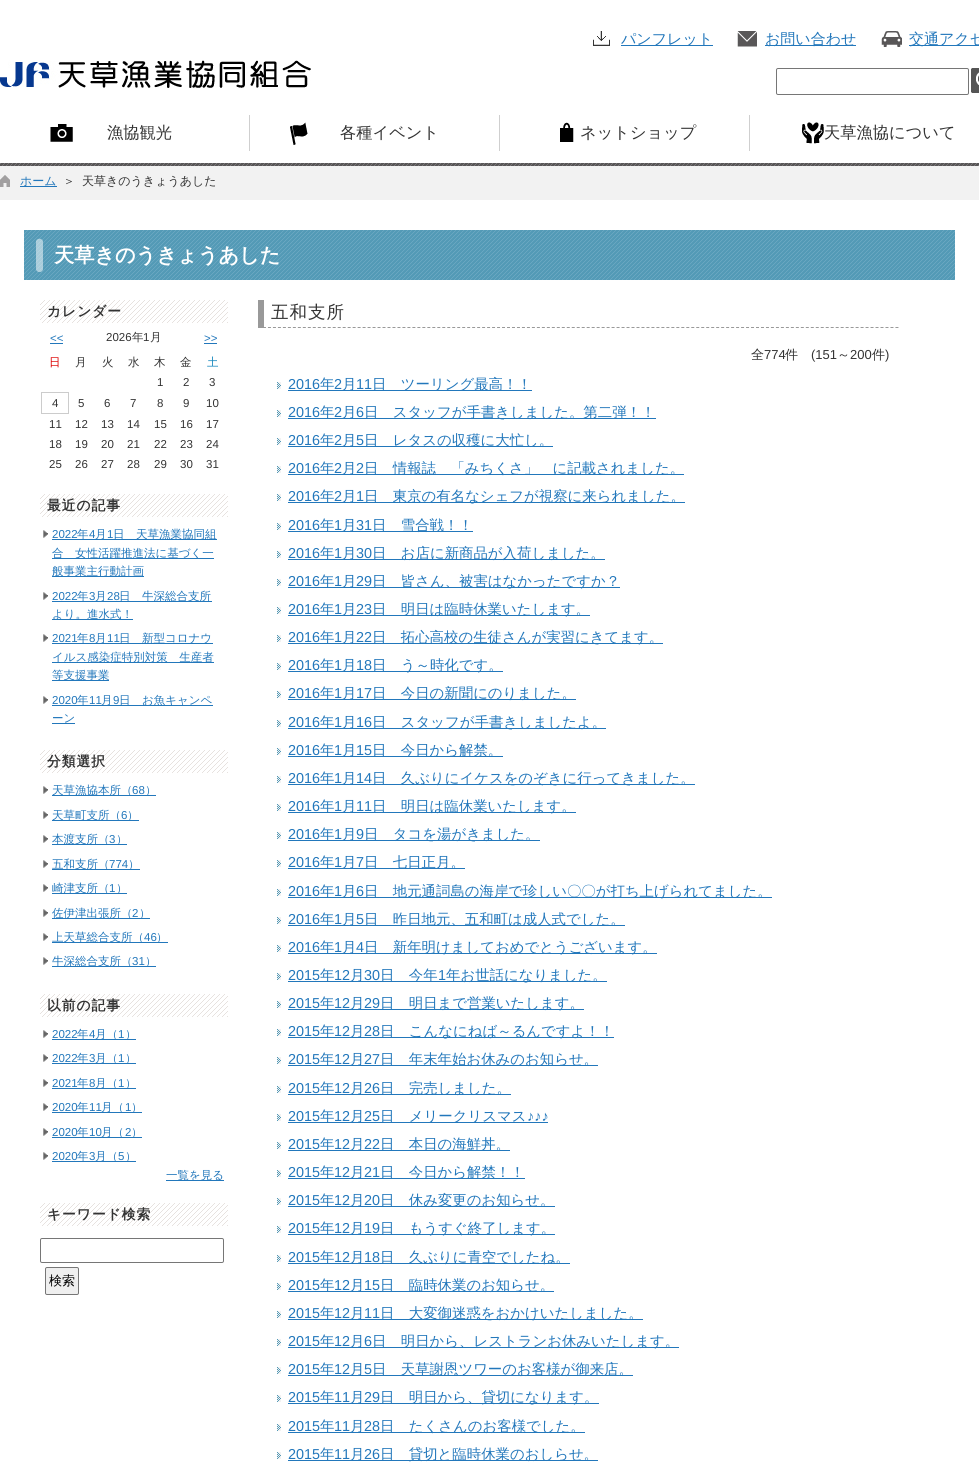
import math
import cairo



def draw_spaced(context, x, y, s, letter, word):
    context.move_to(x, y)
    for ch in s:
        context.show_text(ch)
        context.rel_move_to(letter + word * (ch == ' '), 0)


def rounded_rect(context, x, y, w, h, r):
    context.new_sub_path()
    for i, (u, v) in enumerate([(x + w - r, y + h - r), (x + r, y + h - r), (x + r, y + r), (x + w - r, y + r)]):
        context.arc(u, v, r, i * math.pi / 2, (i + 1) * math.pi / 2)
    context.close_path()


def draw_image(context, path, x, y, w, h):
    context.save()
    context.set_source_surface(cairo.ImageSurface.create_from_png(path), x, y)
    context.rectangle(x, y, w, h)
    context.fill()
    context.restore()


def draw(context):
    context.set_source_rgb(1, 1, 1)
    context.paint()
    draw_image(context, "images/1.png", 0, 163, 979, 3)
    draw_image(context, "images/2.png", 593, 31, 17, 15)
    context.set_source_rgb(34 / 255, 119 / 255, 187 / 255)
    context.rectangle(621, 45, 92, 1)
    context.fill()
    draw_image(context, "images/3.png", 737, 31, 20, 16)
    context.rectangle(765, 45, 91, 1)
    context.fill()
    draw_image(context, "images/4.png", 881, 31, 21, 16)
    context.rectangle(909, 45, 70, 1)
    context.fill()
    draw_image(context, "images/5.png", 0, 60, 311, 28)
    draw_image(context, "images/6.png", 50, 124, 23, 18)
    context.set_source_rgb(207 / 255, 207 / 255, 207 / 255)
    context.rectangle(249, 115, 1, 36)
    context.fill()
    draw_image(context, "images/7.png", 290, 122, 18, 23)
    context.rectangle(499, 115, 1, 36)
    context.fill()
    draw_image(context, "images/8.png", 560, 122, 14, 20)
    context.rectangle(749, 115, 1, 36)
    context.fill()
    draw_image(context, "images/9.png", 802, 122, 22, 22)
    rounded_rect(context, 776.5, 68.5, 192, 26, 1.5)
    context.set_source_rgb(118 / 255, 118 / 255, 118 / 255)
    context.set_line_width(1)
    context.stroke()
    draw_image(context, "images/10.png", 971, 68, 8, 25)
    context.set_source_rgb(242 / 255, 242 / 255, 242 / 255)
    context.rectangle(0, 166, 979, 34)
    context.fill()
    draw_image(context, "images/11.png", 0, 175, 10, 12)
    context.set_source_rgb(34 / 255, 119 / 255, 187 / 255)
    context.rectangle(20, 186, 37, 1)
    context.fill()
    draw_image(context, "images/12.png", 24, 230, 931, 50)
    draw_image(context, "images/13.png", 36, 238, 7, 34)
    draw_image(context, "images/14.png", 40, 300, 188, 23)
    context.rectangle(50, 343, 13, 1)
    context.fill()
    context.rectangle(204, 343, 13, 1)
    context.fill()
    context.set_source_rgb(204 / 255, 204 / 255, 204 / 255)
    context.rectangle(41, 392, 28, 1)
    context.fill()
    context.rectangle(68, 392, 1, 22)
    context.fill()
    context.rectangle(41, 413, 28, 1)
    context.fill()
    context.rectangle(41, 392, 1, 22)
    context.fill()
    draw_image(context, "images/14.png", 40, 494, 188, 23)
    draw_image(context, "images/15.png", 43, 530, 5, 8)
    context.set_source_rgb(34 / 255, 119 / 255, 187 / 255)
    context.rectangle(52, 539, 165, 1)
    context.fill()
    context.rectangle(52, 558, 162, 1)
    context.fill()
    context.rectangle(52, 576, 92, 1)
    context.fill()
    draw_image(context, "images/15.png", 43, 592, 5, 8)
    context.rectangle(52, 601, 160, 1)
    context.fill()
    context.rectangle(52, 619, 81, 1)
    context.fill()
    draw_image(context, "images/15.png", 43, 634, 5, 8)
    context.rectangle(52, 643, 161, 1)
    context.fill()
    context.rectangle(52, 662, 162, 1)
    context.fill()
    context.rectangle(52, 680, 57, 1)
    context.fill()
    draw_image(context, "images/15.png", 43, 696, 5, 8)
    context.rectangle(52, 705, 161, 1)
    context.fill()
    context.rectangle(52, 723, 23, 1)
    context.fill()
    draw_image(context, "images/14.png", 40, 750, 188, 23)
    draw_image(context, "images/15.png", 43, 786, 5, 8)
    context.rectangle(52, 795, 104, 1)
    context.fill()
    draw_image(context, "images/15.png", 43, 811, 5, 8)
    context.rectangle(52, 820, 87, 1)
    context.fill()
    draw_image(context, "images/15.png", 43, 835, 5, 8)
    context.rectangle(52, 844, 75, 1)
    context.fill()
    draw_image(context, "images/15.png", 43, 860, 5, 8)
    context.rectangle(52, 869, 88, 1)
    context.fill()
    draw_image(context, "images/15.png", 43, 884, 5, 8)
    context.rectangle(52, 893, 75, 1)
    context.fill()
    draw_image(context, "images/15.png", 43, 909, 5, 8)
    context.rectangle(52, 918, 98, 1)
    context.fill()
    draw_image(context, "images/15.png", 43, 933, 5, 8)
    context.rectangle(52, 942, 116, 1)
    context.fill()
    draw_image(context, "images/15.png", 43, 957, 5, 8)
    context.rectangle(52, 966, 104, 1)
    context.fill()
    draw_image(context, "images/14.png", 40, 994, 188, 23)
    draw_image(context, "images/15.png", 43, 1030, 5, 8)
    context.rectangle(52, 1039, 84, 1)
    context.fill()
    draw_image(context, "images/15.png", 43, 1054, 5, 8)
    context.rectangle(52, 1063, 84, 1)
    context.fill()
    draw_image(context, "images/15.png", 43, 1079, 5, 8)
    context.rectangle(52, 1088, 84, 1)
    context.fill()
    draw_image(context, "images/15.png", 43, 1103, 5, 8)
    context.rectangle(52, 1112, 90, 1)
    context.fill()
    draw_image(context, "images/15.png", 43, 1128, 5, 8)
    context.rectangle(52, 1137, 90, 1)
    context.fill()
    draw_image(context, "images/15.png", 43, 1152, 5, 8)
    context.rectangle(52, 1161, 84, 1)
    context.fill()
    context.rectangle(166, 1180, 58, 1)
    context.fill()
    draw_image(context, "images/14.png", 40, 1203, 188, 23)
    rounded_rect(context, 40.5, 1238.5, 183, 24, 1.5)
    context.set_source_rgb(118 / 255, 118 / 255, 118 / 255)
    context.stroke()
    context.set_source_rgb(239 / 255, 239 / 255, 239 / 255)
    rounded_rect(context, 45.5, 1267.5, 33, 27, 1.5)
    context.fill_preserve()
    context.set_source_rgb(118 / 255, 118 / 255, 118 / 255)
    context.stroke()
    context.new_path()
    context.move_to(258, 327.5)
    context.line_to(899, 327.5)
    context.set_source_rgb(153 / 255, 153 / 255, 153 / 255)
    context.set_dash([3, 1.98])
    context.stroke()
    context.rectangle(258, 300, 6, 28)
    context.fill()
    draw_image(context, "images/16.png", 277, 382, 4, 7)
    context.set_source_rgb(34 / 255, 119 / 255, 187 / 255)
    context.rectangle(288, 390, 244, 1)
    context.fill()
    draw_image(context, "images/16.png", 277, 410, 4, 7)
    context.rectangle(288, 418, 368, 1)
    context.fill()
    draw_image(context, "images/16.png", 277, 438, 4, 7)
    context.rectangle(288, 446, 265, 1)
    context.fill()
    draw_image(context, "images/16.png", 277, 466, 4, 7)
    context.rectangle(288, 474, 396, 1)
    context.fill()
    draw_image(context, "images/16.png", 277, 494, 4, 7)
    context.rectangle(288, 502, 397, 1)
    context.fill()
    draw_image(context, "images/16.png", 277, 523, 4, 7)
    context.rectangle(288, 531, 185, 1)
    context.fill()
    draw_image(context, "images/16.png", 277, 551, 4, 7)
    context.rectangle(288, 559, 317, 1)
    context.fill()
    draw_image(context, "images/16.png", 277, 579, 4, 7)
    context.rectangle(288, 587, 332, 1)
    context.fill()
    draw_image(context, "images/16.png", 277, 607, 4, 7)
    context.rectangle(288, 615, 302, 1)
    context.fill()
    draw_image(context, "images/16.png", 277, 635, 4, 7)
    context.rectangle(288, 643, 375, 1)
    context.fill()
    draw_image(context, "images/16.png", 277, 663, 4, 7)
    context.rectangle(288, 671, 215, 1)
    context.fill()
    draw_image(context, "images/16.png", 277, 691, 4, 7)
    context.rectangle(288, 699, 288, 1)
    context.fill()
    draw_image(context, "images/16.png", 277, 720, 4, 7)
    context.rectangle(288, 728, 318, 1)
    context.fill()
    draw_image(context, "images/16.png", 277, 748, 4, 7)
    context.rectangle(288, 756, 215, 1)
    context.fill()
    draw_image(context, "images/16.png", 277, 776, 4, 7)
    context.rectangle(288, 784, 407, 1)
    context.fill()
    draw_image(context, "images/16.png", 277, 804, 4, 7)
    context.rectangle(288, 812, 288, 1)
    context.fill()
    draw_image(context, "images/16.png", 277, 832, 4, 7)
    context.rectangle(288, 840, 252, 1)
    context.fill()
    draw_image(context, "images/16.png", 277, 860, 4, 7)
    context.rectangle(288, 868, 177, 1)
    context.fill()
    draw_image(context, "images/16.png", 277, 889, 4, 7)
    context.rectangle(288, 897, 484, 1)
    context.fill()
    draw_image(context, "images/16.png", 277, 917, 4, 7)
    context.rectangle(288, 925, 337, 1)
    context.fill()
    draw_image(context, "images/16.png", 277, 945, 4, 7)
    context.rectangle(288, 953, 369, 1)
    context.fill()
    draw_image(context, "images/16.png", 277, 973, 4, 7)
    context.rectangle(288, 981, 319, 1)
    context.fill()
    draw_image(context, "images/16.png", 277, 1001, 4, 7)
    context.rectangle(288, 1009, 296, 1)
    context.fill()
    draw_image(context, "images/16.png", 277, 1029, 4, 7)
    context.rectangle(288, 1037, 326, 1)
    context.fill()
    draw_image(context, "images/16.png", 277, 1057, 4, 7)
    context.rectangle(288, 1065, 310, 1)
    context.fill()
    draw_image(context, "images/16.png", 277, 1086, 4, 7)
    context.rectangle(288, 1094, 223, 1)
    context.fill()
    draw_image(context, "images/16.png", 277, 1114, 4, 7)
    context.rectangle(288, 1122, 260, 1)
    context.fill()
    draw_image(context, "images/16.png", 277, 1142, 4, 7)
    context.rectangle(288, 1150, 222, 1)
    context.fill()
    draw_image(context, "images/16.png", 277, 1170, 4, 7)
    context.rectangle(288, 1178, 237, 1)
    context.fill()
    draw_image(context, "images/16.png", 277, 1198, 4, 7)
    context.rectangle(288, 1206, 267, 1)
    context.fill()
    draw_image(context, "images/16.png", 277, 1226, 4, 7)
    context.rectangle(288, 1234, 267, 1)
    context.fill()
    draw_image(context, "images/16.png", 277, 1255, 4, 7)
    context.rectangle(288, 1263, 282, 1)
    context.fill()
    draw_image(context, "images/16.png", 277, 1283, 4, 7)
    context.rectangle(288, 1291, 266, 1)
    context.fill()
    draw_image(context, "images/16.png", 277, 1311, 4, 7)
    context.rectangle(288, 1319, 355, 1)
    context.fill()
    draw_image(context, "images/16.png", 277, 1339, 4, 7)
    context.rectangle(288, 1347, 391, 1)
    context.fill()
    draw_image(context, "images/16.png", 277, 1367, 4, 7)
    context.rectangle(288, 1375, 345, 1)
    context.fill()
    draw_image(context, "images/16.png", 277, 1395, 4, 7)
    context.rectangle(288, 1403, 311, 1)
    context.fill()
    draw_image(context, "images/16.png", 277, 1424, 4, 7)
    context.rectangle(288, 1432, 297, 1)
    context.fill()
    draw_image(context, "images/16.png", 277, 1452, 4, 7)
    context.rectangle(288, 1460, 310, 1)
    context.fill()
    context.select_font_face("WenQuanYi Zen Hei Medium")
    context.set_font_size(15)
    context.move_to(621, 44)
    context.show_text("パンフレット")
    context.move_to(765, 44)
    context.show_text("お問い合わせ")
    context.move_to(909, 44)
    context.show_text("交通アクセ")
    context.set_font_size(16.25)
    context.set_source_rgb(51 / 255, 51 / 255, 51 / 255)
    context.move_to(107, 138)
    context.show_text("漁協観光")
    context.move_to(340, 138)
    context.show_text("各種イベント")
    context.move_to(580, 138)
    context.show_text("ネットショップ")
    context.move_to(824, 138)
    context.show_text("天草漁協について")
    context.set_font_size(12)
    context.set_source_rgb(34 / 255, 119 / 255, 187 / 255)
    context.move_to(20, 185)
    context.show_text("ホーム")
    context.set_source_rgb(51 / 255, 51 / 255, 51 / 255)
    context.move_to(63, 185)
    context.show_text("＞")
    context.move_to(82, 185)
    context.show_text("天草きのうきょうあした")
    context.select_font_face("WenQuanYi Zen Hei", cairo.FontSlant.NORMAL, cairo.FontWeight.BOLD)
    context.set_font_size(20.2)
    context.set_source_rgb(1, 1, 1)
    context.move_to(54, 262)
    context.show_text("天草きのうきょうあした")
    context.set_font_size(13.75)
    context.set_source_rgb(51 / 255, 51 / 255, 51 / 255)
    draw_spaced(context, 47, 316, "カレンダー", 1, 0)
    context.select_font_face("Liberation Sans")
    context.set_font_size(11.5)
    context.set_source_rgb(34 / 255, 119 / 255, 187 / 255)
    context.move_to(50, 342)
    context.show_text("<<")
    context.set_source_rgb(51 / 255, 51 / 255, 51 / 255)
    context.move_to(106, 341)
    context.show_text("2026")
    context.select_font_face("WenQuanYi Zen Hei Medium")
    context.move_to(132, 341)
    context.show_text("年")
    context.select_font_face("Liberation Sans")
    context.move_to(143, 341)
    context.show_text("1")
    context.select_font_face("WenQuanYi Zen Hei Medium")
    context.move_to(150, 341)
    context.show_text("月")
    context.select_font_face("Liberation Sans")
    context.set_source_rgb(34 / 255, 119 / 255, 187 / 255)
    context.move_to(204, 342)
    context.show_text(">>")
    context.select_font_face("WenQuanYi Zen Hei Medium")
    context.set_source_rgb(221 / 255, 0, 0)
    context.move_to(49, 366)
    context.show_text("日")
    context.set_source_rgb(51 / 255, 51 / 255, 51 / 255)
    context.move_to(75, 366)
    context.show_text("月")
    context.move_to(102, 366)
    context.show_text("火")
    context.move_to(128, 366)
    context.show_text("水")
    context.move_to(154, 366)
    context.show_text("木")
    context.move_to(180, 366)
    context.show_text("金")
    context.set_source_rgb(21 / 255, 135 / 255, 189 / 255)
    context.move_to(207, 366)
    context.show_text("土")
    context.select_font_face("Liberation Sans")
    context.set_source_rgb(51 / 255, 51 / 255, 51 / 255)
    context.move_to(157, 386)
    context.show_text("1")
    context.move_to(183, 386)
    context.show_text("2")
    context.move_to(209, 386)
    context.show_text("3")
    context.move_to(52, 407)
    context.show_text("4")
    context.move_to(78, 407)
    context.show_text("5")
    context.move_to(104, 407)
    context.show_text("6")
    context.move_to(130, 407)
    context.show_text("7")
    context.move_to(157, 407)
    context.show_text("8")
    context.move_to(183, 407)
    context.show_text("9")
    context.move_to(206, 407)
    context.show_text("10")
    context.move_to(49, 428)
    context.show_text("11")
    context.move_to(75, 428)
    context.show_text("12")
    context.move_to(101, 428)
    context.show_text("13")
    context.move_to(127, 428)
    context.show_text("14")
    context.move_to(154, 428)
    context.show_text("15")
    context.move_to(180, 428)
    context.show_text("16")
    context.move_to(206, 428)
    context.show_text("17")
    context.move_to(49, 448)
    context.show_text("18")
    context.move_to(75, 448)
    context.show_text("19")
    context.move_to(101, 448)
    context.show_text("20")
    context.move_to(127, 448)
    context.show_text("21")
    context.move_to(154, 448)
    context.show_text("22")
    context.move_to(180, 448)
    context.show_text("23")
    context.move_to(206, 448)
    context.show_text("24")
    context.move_to(49, 468)
    context.show_text("25")
    context.move_to(75, 468)
    context.show_text("26")
    context.move_to(101, 468)
    context.show_text("27")
    context.move_to(127, 468)
    context.show_text("28")
    context.move_to(154, 468)
    context.show_text("29")
    context.move_to(180, 468)
    context.show_text("30")
    context.move_to(206, 468)
    context.show_text("31")
    context.select_font_face("WenQuanYi Zen Hei", cairo.FontSlant.NORMAL, cairo.FontWeight.BOLD)
    context.set_font_size(13.75)
    draw_spaced(context, 47, 510, "最近の記事", 1, 0)
    context.select_font_face("Liberation Sans")
    context.set_font_size(11.5)
    context.set_source_rgb(34 / 255, 119 / 255, 187 / 255)
    context.move_to(52, 538)
    context.show_text("2022")
    context.select_font_face("WenQuanYi Zen Hei Medium")
    context.move_to(77, 538)
    context.show_text("年")
    context.select_font_face("Liberation Sans")
    context.move_to(89, 538)
    context.show_text("4")
    context.select_font_face("WenQuanYi Zen Hei Medium")
    context.move_to(95, 538)
    context.show_text("月")
    context.select_font_face("Liberation Sans")
    context.move_to(107, 538)
    context.show_text("1")
    context.select_font_face("WenQuanYi Zen Hei Medium")
    context.move_to(113, 538)
    context.show_text("日　天草漁業協同組")
    context.move_to(52, 557)
    context.show_text("合　女性活躍推進法に基づく一")
    context.move_to(52, 575)
    context.show_text("般事業主行動計画")
    context.select_font_face("Liberation Sans")
    context.move_to(52, 600)
    context.show_text("2022")
    context.select_font_face("WenQuanYi Zen Hei Medium")
    context.move_to(77, 600)
    context.show_text("年")
    context.select_font_face("Liberation Sans")
    context.move_to(89, 600)
    context.show_text("3")
    context.select_font_face("WenQuanYi Zen Hei Medium")
    context.move_to(95, 600)
    context.show_text("月")
    context.select_font_face("Liberation Sans")
    context.move_to(107, 600)
    context.show_text("28")
    context.select_font_face("WenQuanYi Zen Hei Medium")
    context.move_to(119, 600)
    context.show_text("日　牛深総合支所")
    context.move_to(52, 618)
    context.show_text("より。進水式！")
    context.select_font_face("Liberation Sans")
    context.move_to(52, 642)
    context.show_text("2021")
    context.select_font_face("WenQuanYi Zen Hei Medium")
    context.move_to(77, 642)
    context.show_text("年")
    context.select_font_face("Liberation Sans")
    context.move_to(89, 642)
    context.show_text("8")
    context.select_font_face("WenQuanYi Zen Hei Medium")
    context.move_to(95, 642)
    context.show_text("月")
    context.select_font_face("Liberation Sans")
    context.move_to(107, 642)
    context.show_text("11")
    context.select_font_face("WenQuanYi Zen Hei Medium")
    context.move_to(119, 642)
    context.show_text("日　新型コロナウ")
    context.move_to(52, 661)
    context.show_text("イルス感染症特別対策　生産者")
    context.move_to(52, 679)
    context.show_text("等支援事業")
    context.select_font_face("Liberation Sans")
    context.move_to(52, 704)
    context.show_text("2020")
    context.select_font_face("WenQuanYi Zen Hei Medium")
    context.move_to(77, 704)
    context.show_text("年")
    context.select_font_face("Liberation Sans")
    context.move_to(89, 704)
    context.show_text("11")
    context.select_font_face("WenQuanYi Zen Hei Medium")
    context.move_to(101, 704)
    context.show_text("月")
    context.select_font_face("Liberation Sans")
    context.move_to(113, 704)
    context.show_text("9")
    context.select_font_face("WenQuanYi Zen Hei Medium")
    context.move_to(119, 704)
    context.show_text("日　お魚キャンペ")
    context.move_to(52, 722)
    context.show_text("ーン")
    context.select_font_face("WenQuanYi Zen Hei", cairo.FontSlant.NORMAL, cairo.FontWeight.BOLD)
    context.set_font_size(13.75)
    context.set_source_rgb(51 / 255, 51 / 255, 51 / 255)
    draw_spaced(context, 47, 766, "分類選択", 1, 0)
    context.select_font_face("WenQuanYi Zen Hei Medium")
    context.set_font_size(11.5)
    context.set_source_rgb(34 / 255, 119 / 255, 187 / 255)
    context.move_to(52, 794)
    context.show_text("天草漁協本所（")
    context.select_font_face("Liberation Sans")
    context.move_to(132, 794)
    context.show_text("68")
    context.select_font_face("WenQuanYi Zen Hei Medium")
    context.move_to(145, 794)
    context.show_text("）")
    context.move_to(52, 819)
    context.show_text("天草町支所（")
    context.select_font_face("Liberation Sans")
    context.move_to(121, 819)
    context.show_text("6")
    context.select_font_face("WenQuanYi Zen Hei Medium")
    context.move_to(127, 819)
    context.show_text("）")
    context.move_to(52, 843)
    context.show_text("本渡支所（")
    context.select_font_face("Liberation Sans")
    context.move_to(109, 843)
    context.show_text("3")
    context.select_font_face("WenQuanYi Zen Hei Medium")
    context.move_to(116, 843)
    context.show_text("）")
    context.move_to(52, 868)
    context.show_text("五和支所（")
    context.select_font_face("Liberation Sans")
    context.move_to(109, 868)
    context.show_text("774")
    context.select_font_face("WenQuanYi Zen Hei Medium")
    context.move_to(128, 868)
    context.show_text("）")
    context.move_to(52, 892)
    context.show_text("崎津支所（")
    context.select_font_face("Liberation Sans")
    context.move_to(109, 892)
    context.show_text("1")
    context.select_font_face("WenQuanYi Zen Hei Medium")
    context.move_to(116, 892)
    context.show_text("）")
    context.move_to(52, 917)
    context.show_text("佐伊津出張所（")
    context.select_font_face("Liberation Sans")
    context.move_to(132, 917)
    context.show_text("2")
    context.select_font_face("WenQuanYi Zen Hei Medium")
    context.move_to(139, 917)
    context.show_text("）")
    context.move_to(52, 941)
    context.show_text("上天草総合支所（")
    context.select_font_face("Liberation Sans")
    context.move_to(144, 941)
    context.show_text("46")
    context.select_font_face("WenQuanYi Zen Hei Medium")
    context.move_to(156, 941)
    context.show_text("）")
    context.move_to(52, 965)
    context.show_text("牛深総合支所（")
    context.select_font_face("Liberation Sans")
    context.move_to(132, 965)
    context.show_text("31")
    context.select_font_face("WenQuanYi Zen Hei Medium")
    context.move_to(145, 965)
    context.show_text("）")
    context.select_font_face("WenQuanYi Zen Hei", cairo.FontSlant.NORMAL, cairo.FontWeight.BOLD)
    context.set_font_size(13.75)
    context.set_source_rgb(51 / 255, 51 / 255, 51 / 255)
    draw_spaced(context, 47, 1010, "以前の記事", 1, 0)
    context.select_font_face("Liberation Sans")
    context.set_font_size(11.5)
    context.set_source_rgb(34 / 255, 119 / 255, 187 / 255)
    context.move_to(52, 1038)
    context.show_text("2022")
    context.select_font_face("WenQuanYi Zen Hei Medium")
    context.move_to(77, 1038)
    context.show_text("年")
    context.select_font_face("Liberation Sans")
    context.move_to(89, 1038)
    context.show_text("4")
    context.select_font_face("WenQuanYi Zen Hei Medium")
    context.move_to(95, 1038)
    context.show_text("月（")
    context.select_font_face("Liberation Sans")
    context.move_to(118, 1038)
    context.show_text("1")
    context.select_font_face("WenQuanYi Zen Hei Medium")
    context.move_to(125, 1038)
    context.show_text("）")
    context.select_font_face("Liberation Sans")
    context.move_to(52, 1062)
    context.show_text("2022")
    context.select_font_face("WenQuanYi Zen Hei Medium")
    context.move_to(77, 1062)
    context.show_text("年")
    context.select_font_face("Liberation Sans")
    context.move_to(89, 1062)
    context.show_text("3")
    context.select_font_face("WenQuanYi Zen Hei Medium")
    context.move_to(95, 1062)
    context.show_text("月（")
    context.select_font_face("Liberation Sans")
    context.move_to(118, 1062)
    context.show_text("1")
    context.select_font_face("WenQuanYi Zen Hei Medium")
    context.move_to(125, 1062)
    context.show_text("）")
    context.select_font_face("Liberation Sans")
    context.move_to(52, 1087)
    context.show_text("2021")
    context.select_font_face("WenQuanYi Zen Hei Medium")
    context.move_to(77, 1087)
    context.show_text("年")
    context.select_font_face("Liberation Sans")
    context.move_to(89, 1087)
    context.show_text("8")
    context.select_font_face("WenQuanYi Zen Hei Medium")
    context.move_to(95, 1087)
    context.show_text("月（")
    context.select_font_face("Liberation Sans")
    context.move_to(118, 1087)
    context.show_text("1")
    context.select_font_face("WenQuanYi Zen Hei Medium")
    context.move_to(125, 1087)
    context.show_text("）")
    context.select_font_face("Liberation Sans")
    context.move_to(52, 1111)
    context.show_text("2020")
    context.select_font_face("WenQuanYi Zen Hei Medium")
    context.move_to(77, 1111)
    context.show_text("年")
    context.select_font_face("Liberation Sans")
    context.move_to(89, 1111)
    context.show_text("11")
    context.select_font_face("WenQuanYi Zen Hei Medium")
    context.move_to(101, 1111)
    context.show_text("月（")
    context.select_font_face("Liberation Sans")
    context.move_to(125, 1111)
    context.show_text("1")
    context.select_font_face("WenQuanYi Zen Hei Medium")
    context.move_to(131, 1111)
    context.show_text("）")
    context.select_font_face("Liberation Sans")
    context.move_to(52, 1136)
    context.show_text("2020")
    context.select_font_face("WenQuanYi Zen Hei Medium")
    context.move_to(77, 1136)
    context.show_text("年")
    context.select_font_face("Liberation Sans")
    context.move_to(89, 1136)
    context.show_text("10")
    context.select_font_face("WenQuanYi Zen Hei Medium")
    context.move_to(101, 1136)
    context.show_text("月（")
    context.select_font_face("Liberation Sans")
    context.move_to(125, 1136)
    context.show_text("2")
    context.select_font_face("WenQuanYi Zen Hei Medium")
    context.move_to(131, 1136)
    context.show_text("）")
    context.select_font_face("Liberation Sans")
    context.move_to(52, 1160)
    context.show_text("2020")
    context.select_font_face("WenQuanYi Zen Hei Medium")
    context.move_to(77, 1160)
    context.show_text("年")
    context.select_font_face("Liberation Sans")
    context.move_to(89, 1160)
    context.show_text("3")
    context.select_font_face("WenQuanYi Zen Hei Medium")
    context.move_to(95, 1160)
    context.show_text("月（")
    context.select_font_face("Liberation Sans")
    context.move_to(118, 1160)
    context.show_text("5")
    context.select_font_face("WenQuanYi Zen Hei Medium")
    context.move_to(125, 1160)
    context.show_text("）")
    context.move_to(166, 1179)
    context.show_text("一覧を見る")
    context.select_font_face("WenQuanYi Zen Hei", cairo.FontSlant.NORMAL, cairo.FontWeight.BOLD)
    context.set_font_size(13.75)
    context.set_source_rgb(51 / 255, 51 / 255, 51 / 255)
    draw_spaced(context, 47, 1219, "キーワード検索", 1, 0)
    context.select_font_face("WenQuanYi Zen Hei Medium")
    context.set_font_size(13)
    context.set_source_rgb(0, 0, 0)
    context.move_to(49, 1285)
    context.show_text("検索")
    context.set_font_size(17.5)
    context.set_source_rgb(51 / 255, 51 / 255, 51 / 255)
    draw_spaced(context, 271, 318, "五和支所", 1, 0)
    context.set_font_size(13)
    context.move_to(751, 359)
    context.show_text("全")
    context.select_font_face("Liberation Sans")
    context.move_to(764, 359)
    context.show_text("774")
    context.select_font_face("WenQuanYi Zen Hei Medium")
    context.move_to(785, 359)
    context.show_text("件")
    context.select_font_face("Liberation Sans")
    context.move_to(811, 359)
    context.show_text("(151")
    context.select_font_face("WenQuanYi Zen Hei Medium")
    context.move_to(837, 359)
    context.show_text("～")
    context.select_font_face("Liberation Sans")
    context.move_to(850, 359)
    context.show_text("200")
    context.select_font_face("WenQuanYi Zen Hei Medium")
    context.move_to(872, 359)
    context.show_text("件")
    context.select_font_face("Liberation Sans")
    context.move_to(885, 359)
    context.show_text(")")
    context.set_font_size(14.4)
    context.set_source_rgb(34 / 255, 119 / 255, 187 / 255)
    context.move_to(288, 389)
    context.show_text("2016")
    context.select_font_face("WenQuanYi Zen Hei Medium")
    context.move_to(320, 389)
    context.show_text("年")
    context.select_font_face("Liberation Sans")
    context.move_to(334, 389)
    context.show_text("2")
    context.select_font_face("WenQuanYi Zen Hei Medium")
    context.move_to(342, 389)
    context.show_text("月")
    context.select_font_face("Liberation Sans")
    context.move_to(356, 389)
    context.show_text("11")
    context.select_font_face("WenQuanYi Zen Hei Medium")
    context.move_to(372, 389)
    context.show_text("日　ツーリング最高！！")
    context.select_font_face("Liberation Sans")
    context.move_to(288, 417)
    context.show_text("2016")
    context.select_font_face("WenQuanYi Zen Hei Medium")
    context.move_to(320, 417)
    context.show_text("年")
    context.select_font_face("Liberation Sans")
    context.move_to(334, 417)
    context.show_text("2")
    context.select_font_face("WenQuanYi Zen Hei Medium")
    context.move_to(342, 417)
    context.show_text("月")
    context.select_font_face("Liberation Sans")
    context.move_to(356, 417)
    context.show_text("6")
    context.select_font_face("WenQuanYi Zen Hei Medium")
    context.move_to(364, 417)
    context.show_text("日　スタッフが手書きしました。第二弾！！")
    context.select_font_face("Liberation Sans")
    context.move_to(288, 445)
    context.show_text("2016")
    context.select_font_face("WenQuanYi Zen Hei Medium")
    context.move_to(320, 445)
    context.show_text("年")
    context.select_font_face("Liberation Sans")
    context.move_to(334, 445)
    context.show_text("2")
    context.select_font_face("WenQuanYi Zen Hei Medium")
    context.move_to(342, 445)
    context.show_text("月")
    context.select_font_face("Liberation Sans")
    context.move_to(356, 445)
    context.show_text("5")
    context.select_font_face("WenQuanYi Zen Hei Medium")
    context.move_to(364, 445)
    context.show_text("日　レタスの収穫に大忙し。")
    context.select_font_face("Liberation Sans")
    context.move_to(288, 473)
    context.show_text("2016")
    context.select_font_face("WenQuanYi Zen Hei Medium")
    context.move_to(320, 473)
    context.show_text("年")
    context.select_font_face("Liberation Sans")
    context.move_to(334, 473)
    context.show_text("2")
    context.select_font_face("WenQuanYi Zen Hei Medium")
    context.move_to(342, 473)
    context.show_text("月")
    context.select_font_face("Liberation Sans")
    context.move_to(356, 473)
    context.show_text("2")
    context.select_font_face("WenQuanYi Zen Hei Medium")
    context.move_to(364, 473)
    context.show_text("日　情報誌　「みちくさ」　に記載されました。")
    context.select_font_face("Liberation Sans")
    context.move_to(288, 501)
    context.show_text("2016")
    context.select_font_face("WenQuanYi Zen Hei Medium")
    context.move_to(320, 501)
    context.show_text("年")
    context.select_font_face("Liberation Sans")
    context.move_to(334, 501)
    context.show_text("2")
    context.select_font_face("WenQuanYi Zen Hei Medium")
    context.move_to(342, 501)
    context.show_text("月")
    context.select_font_face("Liberation Sans")
    context.move_to(356, 501)
    context.show_text("1")
    context.select_font_face("WenQuanYi Zen Hei Medium")
    context.move_to(364, 501)
    context.show_text("日　東京の有名なシェフが視察に来られました。")
    context.select_font_face("Liberation Sans")
    context.move_to(288, 530)
    context.show_text("2016")
    context.select_font_face("WenQuanYi Zen Hei Medium")
    context.move_to(320, 530)
    context.show_text("年")
    context.select_font_face("Liberation Sans")
    context.move_to(334, 530)
    context.show_text("1")
    context.select_font_face("WenQuanYi Zen Hei Medium")
    context.move_to(342, 530)
    context.show_text("月")
    context.select_font_face("Liberation Sans")
    context.move_to(356, 530)
    context.show_text("31")
    context.select_font_face("WenQuanYi Zen Hei Medium")
    context.move_to(372, 530)
    context.show_text("日　雪合戦！！")
    context.select_font_face("Liberation Sans")
    context.move_to(288, 558)
    context.show_text("2016")
    context.select_font_face("WenQuanYi Zen Hei Medium")
    context.move_to(320, 558)
    context.show_text("年")
    context.select_font_face("Liberation Sans")
    context.move_to(334, 558)
    context.show_text("1")
    context.select_font_face("WenQuanYi Zen Hei Medium")
    context.move_to(342, 558)
    context.show_text("月")
    context.select_font_face("Liberation Sans")
    context.move_to(356, 558)
    context.show_text("30")
    context.select_font_face("WenQuanYi Zen Hei Medium")
    context.move_to(372, 558)
    context.show_text("日　お店に新商品が入荷しました。")
    context.select_font_face("Liberation Sans")
    context.move_to(288, 586)
    context.show_text("2016")
    context.select_font_face("WenQuanYi Zen Hei Medium")
    context.move_to(320, 586)
    context.show_text("年")
    context.select_font_face("Liberation Sans")
    context.move_to(334, 586)
    context.show_text("1")
    context.select_font_face("WenQuanYi Zen Hei Medium")
    context.move_to(342, 586)
    context.show_text("月")
    context.select_font_face("Liberation Sans")
    context.move_to(356, 586)
    context.show_text("29")
    context.select_font_face("WenQuanYi Zen Hei Medium")
    context.move_to(372, 586)
    context.show_text("日　皆さん、被害はなかったですか？")
    context.select_font_face("Liberation Sans")
    context.move_to(288, 614)
    context.show_text("2016")
    context.select_font_face("WenQuanYi Zen Hei Medium")
    context.move_to(320, 614)
    context.show_text("年")
    context.select_font_face("Liberation Sans")
    context.move_to(334, 614)
    context.show_text("1")
    context.select_font_face("WenQuanYi Zen Hei Medium")
    context.move_to(342, 614)
    context.show_text("月")
    context.select_font_face("Liberation Sans")
    context.move_to(356, 614)
    context.show_text("23")
    context.select_font_face("WenQuanYi Zen Hei Medium")
    context.move_to(372, 614)
    context.show_text("日　明日は臨時休業いたします。")
    context.select_font_face("Liberation Sans")
    context.move_to(288, 642)
    context.show_text("2016")
    context.select_font_face("WenQuanYi Zen Hei Medium")
    context.move_to(320, 642)
    context.show_text("年")
    context.select_font_face("Liberation Sans")
    context.move_to(334, 642)
    context.show_text("1")
    context.select_font_face("WenQuanYi Zen Hei Medium")
    context.move_to(342, 642)
    context.show_text("月")
    context.select_font_face("Liberation Sans")
    context.move_to(356, 642)
    context.show_text("22")
    context.select_font_face("WenQuanYi Zen Hei Medium")
    context.move_to(372, 642)
    context.show_text("日　拓心高校の生徒さんが実習にきてます。")
    context.select_font_face("Liberation Sans")
    context.move_to(288, 670)
    context.show_text("2016")
    context.select_font_face("WenQuanYi Zen Hei Medium")
    context.move_to(320, 670)
    context.show_text("年")
    context.select_font_face("Liberation Sans")
    context.move_to(334, 670)
    context.show_text("1")
    context.select_font_face("WenQuanYi Zen Hei Medium")
    context.move_to(342, 670)
    context.show_text("月")
    context.select_font_face("Liberation Sans")
    context.move_to(356, 670)
    context.show_text("18")
    context.select_font_face("WenQuanYi Zen Hei Medium")
    context.move_to(372, 670)
    context.show_text("日　う～時化です。")
    context.select_font_face("Liberation Sans")
    context.move_to(288, 698)
    context.show_text("2016")
    context.select_font_face("WenQuanYi Zen Hei Medium")
    context.move_to(320, 698)
    context.show_text("年")
    context.select_font_face("Liberation Sans")
    context.move_to(334, 698)
    context.show_text("1")
    context.select_font_face("WenQuanYi Zen Hei Medium")
    context.move_to(342, 698)
    context.show_text("月")
    context.select_font_face("Liberation Sans")
    context.move_to(356, 698)
    context.show_text("17")
    context.select_font_face("WenQuanYi Zen Hei Medium")
    context.move_to(372, 698)
    context.show_text("日　今日の新聞にのりました。")
    context.select_font_face("Liberation Sans")
    context.move_to(288, 727)
    context.show_text("2016")
    context.select_font_face("WenQuanYi Zen Hei Medium")
    context.move_to(320, 727)
    context.show_text("年")
    context.select_font_face("Liberation Sans")
    context.move_to(334, 727)
    context.show_text("1")
    context.select_font_face("WenQuanYi Zen Hei Medium")
    context.move_to(342, 727)
    context.show_text("月")
    context.select_font_face("Liberation Sans")
    context.move_to(356, 727)
    context.show_text("16")
    context.select_font_face("WenQuanYi Zen Hei Medium")
    context.move_to(372, 727)
    context.show_text("日　スタッフが手書きしましたよ。")
    context.select_font_face("Liberation Sans")
    context.move_to(288, 755)
    context.show_text("2016")
    context.select_font_face("WenQuanYi Zen Hei Medium")
    context.move_to(320, 755)
    context.show_text("年")
    context.select_font_face("Liberation Sans")
    context.move_to(334, 755)
    context.show_text("1")
    context.select_font_face("WenQuanYi Zen Hei Medium")
    context.move_to(342, 755)
    context.show_text("月")
    context.select_font_face("Liberation Sans")
    context.move_to(356, 755)
    context.show_text("15")
    context.select_font_face("WenQuanYi Zen Hei Medium")
    context.move_to(372, 755)
    context.show_text("日　今日から解禁。")
    context.select_font_face("Liberation Sans")
    context.move_to(288, 783)
    context.show_text("2016")
    context.select_font_face("WenQuanYi Zen Hei Medium")
    context.move_to(320, 783)
    context.show_text("年")
    context.select_font_face("Liberation Sans")
    context.move_to(334, 783)
    context.show_text("1")
    context.select_font_face("WenQuanYi Zen Hei Medium")
    context.move_to(342, 783)
    context.show_text("月")
    context.select_font_face("Liberation Sans")
    context.move_to(356, 783)
    context.show_text("14")
    context.select_font_face("WenQuanYi Zen Hei Medium")
    context.move_to(372, 783)
    context.show_text("日　久ぶりにイケスをのぞきに行ってきました。")
    context.select_font_face("Liberation Sans")
    context.move_to(288, 811)
    context.show_text("2016")
    context.select_font_face("WenQuanYi Zen Hei Medium")
    context.move_to(320, 811)
    context.show_text("年")
    context.select_font_face("Liberation Sans")
    context.move_to(334, 811)
    context.show_text("1")
    context.select_font_face("WenQuanYi Zen Hei Medium")
    context.move_to(342, 811)
    context.show_text("月")
    context.select_font_face("Liberation Sans")
    context.move_to(356, 811)
    context.show_text("11")
    context.select_font_face("WenQuanYi Zen Hei Medium")
    context.move_to(372, 811)
    context.show_text("日　明日は臨休業いたします。")
    context.select_font_face("Liberation Sans")
    context.move_to(288, 839)
    context.show_text("2016")
    context.select_font_face("WenQuanYi Zen Hei Medium")
    context.move_to(320, 839)
    context.show_text("年")
    context.select_font_face("Liberation Sans")
    context.move_to(334, 839)
    context.show_text("1")
    context.select_font_face("WenQuanYi Zen Hei Medium")
    context.move_to(342, 839)
    context.show_text("月")
    context.select_font_face("Liberation Sans")
    context.move_to(356, 839)
    context.show_text("9")
    context.select_font_face("WenQuanYi Zen Hei Medium")
    context.move_to(364, 839)
    context.show_text("日　タコを湯がきました。")
    context.select_font_face("Liberation Sans")
    context.move_to(288, 867)
    context.show_text("2016")
    context.select_font_face("WenQuanYi Zen Hei Medium")
    context.move_to(320, 867)
    context.show_text("年")
    context.select_font_face("Liberation Sans")
    context.move_to(334, 867)
    context.show_text("1")
    context.select_font_face("WenQuanYi Zen Hei Medium")
    context.move_to(342, 867)
    context.show_text("月")
    context.select_font_face("Liberation Sans")
    context.move_to(356, 867)
    context.show_text("7")
    context.select_font_face("WenQuanYi Zen Hei Medium")
    context.move_to(364, 867)
    context.show_text("日　七日正月。")
    context.select_font_face("Liberation Sans")
    context.move_to(288, 896)
    context.show_text("2016")
    context.select_font_face("WenQuanYi Zen Hei Medium")
    context.move_to(320, 896)
    context.show_text("年")
    context.select_font_face("Liberation Sans")
    context.move_to(334, 896)
    context.show_text("1")
    context.select_font_face("WenQuanYi Zen Hei Medium")
    context.move_to(342, 896)
    context.show_text("月")
    context.select_font_face("Liberation Sans")
    context.move_to(356, 896)
    context.show_text("6")
    context.select_font_face("WenQuanYi Zen Hei Medium")
    context.move_to(364, 896)
    context.show_text("日　地元通詞島の海岸で珍しい〇〇が打ち上げられてました。")
    context.select_font_face("Liberation Sans")
    context.move_to(288, 924)
    context.show_text("2016")
    context.select_font_face("WenQuanYi Zen Hei Medium")
    context.move_to(320, 924)
    context.show_text("年")
    context.select_font_face("Liberation Sans")
    context.move_to(334, 924)
    context.show_text("1")
    context.select_font_face("WenQuanYi Zen Hei Medium")
    context.move_to(342, 924)
    context.show_text("月")
    context.select_font_face("Liberation Sans")
    context.move_to(356, 924)
    context.show_text("5")
    context.select_font_face("WenQuanYi Zen Hei Medium")
    context.move_to(364, 924)
    context.show_text("日　昨日地元、五和町は成人式でした。")
    context.select_font_face("Liberation Sans")
    context.move_to(288, 952)
    context.show_text("2016")
    context.select_font_face("WenQuanYi Zen Hei Medium")
    context.move_to(320, 952)
    context.show_text("年")
    context.select_font_face("Liberation Sans")
    context.move_to(334, 952)
    context.show_text("1")
    context.select_font_face("WenQuanYi Zen Hei Medium")
    context.move_to(342, 952)
    context.show_text("月")
    context.select_font_face("Liberation Sans")
    context.move_to(356, 952)
    context.show_text("4")
    context.select_font_face("WenQuanYi Zen Hei Medium")
    context.move_to(364, 952)
    context.show_text("日　新年明けましておめでとうございます。")
    context.select_font_face("Liberation Sans")
    context.move_to(288, 980)
    context.show_text("2015")
    context.select_font_face("WenQuanYi Zen Hei Medium")
    context.move_to(320, 980)
    context.show_text("年")
    context.select_font_face("Liberation Sans")
    context.move_to(334, 980)
    context.show_text("12")
    context.select_font_face("WenQuanYi Zen Hei Medium")
    context.move_to(350, 980)
    context.show_text("月")
    context.select_font_face("Liberation Sans")
    context.move_to(364, 980)
    context.show_text("30")
    context.select_font_face("WenQuanYi Zen Hei Medium")
    context.move_to(380, 980)
    context.show_text("日　今年")
    context.select_font_face("Liberation Sans")
    context.move_to(438, 980)
    context.show_text("1")
    context.select_font_face("WenQuanYi Zen Hei Medium")
    context.move_to(446, 980)
    context.show_text("年お世話になりました。")
    context.select_font_face("Liberation Sans")
    context.move_to(288, 1008)
    context.show_text("2015")
    context.select_font_face("WenQuanYi Zen Hei Medium")
    context.move_to(320, 1008)
    context.show_text("年")
    context.select_font_face("Liberation Sans")
    context.move_to(334, 1008)
    context.show_text("12")
    context.select_font_face("WenQuanYi Zen Hei Medium")
    context.move_to(350, 1008)
    context.show_text("月")
    context.select_font_face("Liberation Sans")
    context.move_to(364, 1008)
    context.show_text("29")
    context.select_font_face("WenQuanYi Zen Hei Medium")
    context.move_to(380, 1008)
    context.show_text("日　明日まで営業いたします。")
    context.select_font_face("Liberation Sans")
    context.move_to(288, 1036)
    context.show_text("2015")
    context.select_font_face("WenQuanYi Zen Hei Medium")
    context.move_to(320, 1036)
    context.show_text("年")
    context.select_font_face("Liberation Sans")
    context.move_to(334, 1036)
    context.show_text("12")
    context.select_font_face("WenQuanYi Zen Hei Medium")
    context.move_to(350, 1036)
    context.show_text("月")
    context.select_font_face("Liberation Sans")
    context.move_to(364, 1036)
    context.show_text("28")
    context.select_font_face("WenQuanYi Zen Hei Medium")
    context.move_to(380, 1036)
    context.show_text("日　こんなにねば～るんですよ！！")
    context.select_font_face("Liberation Sans")
    context.move_to(288, 1064)
    context.show_text("2015")
    context.select_font_face("WenQuanYi Zen Hei Medium")
    context.move_to(320, 1064)
    context.show_text("年")
    context.select_font_face("Liberation Sans")
    context.move_to(334, 1064)
    context.show_text("12")
    context.select_font_face("WenQuanYi Zen Hei Medium")
    context.move_to(350, 1064)
    context.show_text("月")
    context.select_font_face("Liberation Sans")
    context.move_to(364, 1064)
    context.show_text("27")
    context.select_font_face("WenQuanYi Zen Hei Medium")
    context.move_to(380, 1064)
    context.show_text("日　年末年始お休みのお知らせ。")
    context.select_font_face("Liberation Sans")
    context.move_to(288, 1093)
    context.show_text("2015")
    context.select_font_face("WenQuanYi Zen Hei Medium")
    context.move_to(320, 1093)
    context.show_text("年")
    context.select_font_face("Liberation Sans")
    context.move_to(334, 1093)
    context.show_text("12")
    context.select_font_face("WenQuanYi Zen Hei Medium")
    context.move_to(350, 1093)
    context.show_text("月")
    context.select_font_face("Liberation Sans")
    context.move_to(364, 1093)
    context.show_text("26")
    context.select_font_face("WenQuanYi Zen Hei Medium")
    context.move_to(380, 1093)
    context.show_text("日　完売しました。")
    context.select_font_face("Liberation Sans")
    context.move_to(288, 1121)
    context.show_text("2015")
    context.select_font_face("WenQuanYi Zen Hei Medium")
    context.move_to(320, 1121)
    context.show_text("年")
    context.select_font_face("Liberation Sans")
    context.move_to(334, 1121)
    context.show_text("12")
    context.select_font_face("WenQuanYi Zen Hei Medium")
    context.move_to(350, 1121)
    context.show_text("月")
    context.select_font_face("Liberation Sans")
    context.move_to(364, 1121)
    context.show_text("25")
    context.select_font_face("WenQuanYi Zen Hei Medium")
    context.move_to(380, 1121)
    context.show_text("日　メリークリスマス")
    context.select_font_face("Liberation Sans")
    context.move_to(527, 1121)
    context.show_text("♪♪♪")
    context.move_to(288, 1149)
    context.show_text("2015")
    context.select_font_face("WenQuanYi Zen Hei Medium")
    context.move_to(320, 1149)
    context.show_text("年")
    context.select_font_face("Liberation Sans")
    context.move_to(334, 1149)
    context.show_text("12")
    context.select_font_face("WenQuanYi Zen Hei Medium")
    context.move_to(350, 1149)
    context.show_text("月")
    context.select_font_face("Liberation Sans")
    context.move_to(364, 1149)
    context.show_text("22")
    context.select_font_face("WenQuanYi Zen Hei Medium")
    context.move_to(380, 1149)
    context.show_text("日　本日の海鮮丼。")
    context.select_font_face("Liberation Sans")
    context.move_to(288, 1177)
    context.show_text("2015")
    context.select_font_face("WenQuanYi Zen Hei Medium")
    context.move_to(320, 1177)
    context.show_text("年")
    context.select_font_face("Liberation Sans")
    context.move_to(334, 1177)
    context.show_text("12")
    context.select_font_face("WenQuanYi Zen Hei Medium")
    context.move_to(350, 1177)
    context.show_text("月")
    context.select_font_face("Liberation Sans")
    context.move_to(364, 1177)
    context.show_text("21")
    context.select_font_face("WenQuanYi Zen Hei Medium")
    context.move_to(380, 1177)
    context.show_text("日　今日から解禁！！")
    context.select_font_face("Liberation Sans")
    context.move_to(288, 1205)
    context.show_text("2015")
    context.select_font_face("WenQuanYi Zen Hei Medium")
    context.move_to(320, 1205)
    context.show_text("年")
    context.select_font_face("Liberation Sans")
    context.move_to(334, 1205)
    context.show_text("12")
    context.select_font_face("WenQuanYi Zen Hei Medium")
    context.move_to(350, 1205)
    context.show_text("月")
    context.select_font_face("Liberation Sans")
    context.move_to(364, 1205)
    context.show_text("20")
    context.select_font_face("WenQuanYi Zen Hei Medium")
    context.move_to(380, 1205)
    context.show_text("日　休み変更のお知らせ。")
    context.select_font_face("Liberation Sans")
    context.move_to(288, 1233)
    context.show_text("2015")
    context.select_font_face("WenQuanYi Zen Hei Medium")
    context.move_to(320, 1233)
    context.show_text("年")
    context.select_font_face("Liberation Sans")
    context.move_to(334, 1233)
    context.show_text("12")
    context.select_font_face("WenQuanYi Zen Hei Medium")
    context.move_to(350, 1233)
    context.show_text("月")
    context.select_font_face("Liberation Sans")
    context.move_to(364, 1233)
    context.show_text("19")
    context.select_font_face("WenQuanYi Zen Hei Medium")
    context.move_to(380, 1233)
    context.show_text("日　もうすぐ終了します。")
    context.select_font_face("Liberation Sans")
    context.move_to(288, 1262)
    context.show_text("2015")
    context.select_font_face("WenQuanYi Zen Hei Medium")
    context.move_to(320, 1262)
    context.show_text("年")
    context.select_font_face("Liberation Sans")
    context.move_to(334, 1262)
    context.show_text("12")
    context.select_font_face("WenQuanYi Zen Hei Medium")
    context.move_to(350, 1262)
    context.show_text("月")
    context.select_font_face("Liberation Sans")
    context.move_to(364, 1262)
    context.show_text("18")
    context.select_font_face("WenQuanYi Zen Hei Medium")
    context.move_to(380, 1262)
    context.show_text("日　久ぶりに青空でしたね。")
    context.select_font_face("Liberation Sans")
    context.move_to(288, 1290)
    context.show_text("2015")
    context.select_font_face("WenQuanYi Zen Hei Medium")
    context.move_to(320, 1290)
    context.show_text("年")
    context.select_font_face("Liberation Sans")
    context.move_to(334, 1290)
    context.show_text("12")
    context.select_font_face("WenQuanYi Zen Hei Medium")
    context.move_to(350, 1290)
    context.show_text("月")
    context.select_font_face("Liberation Sans")
    context.move_to(364, 1290)
    context.show_text("15")
    context.select_font_face("WenQuanYi Zen Hei Medium")
    context.move_to(380, 1290)
    context.show_text("日　臨時休業のお知らせ。")
    context.select_font_face("Liberation Sans")
    context.move_to(288, 1318)
    context.show_text("2015")
    context.select_font_face("WenQuanYi Zen Hei Medium")
    context.move_to(320, 1318)
    context.show_text("年")
    context.select_font_face("Liberation Sans")
    context.move_to(334, 1318)
    context.show_text("12")
    context.select_font_face("WenQuanYi Zen Hei Medium")
    context.move_to(350, 1318)
    context.show_text("月")
    context.select_font_face("Liberation Sans")
    context.move_to(364, 1318)
    context.show_text("11")
    context.select_font_face("WenQuanYi Zen Hei Medium")
    context.move_to(380, 1318)
    context.show_text("日　大変御迷惑をおかけいたしました。")
    context.select_font_face("Liberation Sans")
    context.move_to(288, 1346)
    context.show_text("2015")
    context.select_font_face("WenQuanYi Zen Hei Medium")
    context.move_to(320, 1346)
    context.show_text("年")
    context.select_font_face("Liberation Sans")
    context.move_to(334, 1346)
    context.show_text("12")
    context.select_font_face("WenQuanYi Zen Hei Medium")
    context.move_to(350, 1346)
    context.show_text("月")
    context.select_font_face("Liberation Sans")
    context.move_to(364, 1346)
    context.show_text("6")
    context.select_font_face("WenQuanYi Zen Hei Medium")
    context.move_to(372, 1346)
    context.show_text("日　明日から、レストランお休みいたします。")
    context.select_font_face("Liberation Sans")
    context.move_to(288, 1374)
    context.show_text("2015")
    context.select_font_face("WenQuanYi Zen Hei Medium")
    context.move_to(320, 1374)
    context.show_text("年")
    context.select_font_face("Liberation Sans")
    context.move_to(334, 1374)
    context.show_text("12")
    context.select_font_face("WenQuanYi Zen Hei Medium")
    context.move_to(350, 1374)
    context.show_text("月")
    context.select_font_face("Liberation Sans")
    context.move_to(364, 1374)
    context.show_text("5")
    context.select_font_face("WenQuanYi Zen Hei Medium")
    context.move_to(372, 1374)
    context.show_text("日　天草謝恩ツワーのお客様が御来店。")
    context.select_font_face("Liberation Sans")
    context.move_to(288, 1402)
    context.show_text("2015")
    context.select_font_face("WenQuanYi Zen Hei Medium")
    context.move_to(320, 1402)
    context.show_text("年")
    context.select_font_face("Liberation Sans")
    context.move_to(334, 1402)
    context.show_text("11")
    context.select_font_face("WenQuanYi Zen Hei Medium")
    context.move_to(350, 1402)
    context.show_text("月")
    context.select_font_face("Liberation Sans")
    context.move_to(364, 1402)
    context.show_text("29")
    context.select_font_face("WenQuanYi Zen Hei Medium")
    context.move_to(380, 1402)
    context.show_text("日　明日から、貸切になります。")
    context.select_font_face("Liberation Sans")
    context.move_to(288, 1431)
    context.show_text("2015")
    context.select_font_face("WenQuanYi Zen Hei Medium")
    context.move_to(320, 1431)
    context.show_text("年")
    context.select_font_face("Liberation Sans")
    context.move_to(334, 1431)
    context.show_text("11")
    context.select_font_face("WenQuanYi Zen Hei Medium")
    context.move_to(350, 1431)
    context.show_text("月")
    context.select_font_face("Liberation Sans")
    context.move_to(364, 1431)
    context.show_text("28")
    context.select_font_face("WenQuanYi Zen Hei Medium")
    context.move_to(380, 1431)
    context.show_text("日　たくさんのお客様でした。")
    context.select_font_face("Liberation Sans")
    context.move_to(288, 1459)
    context.show_text("2015")
    context.select_font_face("WenQuanYi Zen Hei Medium")
    context.move_to(320, 1459)
    context.show_text("年")
    context.select_font_face("Liberation Sans")
    context.move_to(334, 1459)
    context.show_text("11")
    context.select_font_face("WenQuanYi Zen Hei Medium")
    context.move_to(350, 1459)
    context.show_text("月")
    context.select_font_face("Liberation Sans")
    context.move_to(364, 1459)
    context.show_text("26")
    context.select_font_face("WenQuanYi Zen Hei Medium")
    context.move_to(380, 1459)
    context.show_text("日　貸切と臨時休業のおしらせ。")


surface = cairo.ImageSurface(cairo.Format.RGB24, 979, 1462)
context = cairo.Context(surface)
options = cairo.FontOptions()
options.set_hint_metrics(cairo.HintMetrics.OFF)
options.set_hint_style(cairo.HintStyle.NONE)
context.set_font_options(options)
context.set_miter_limit(4)
draw(context)
surface.write_to_png("out.png")
